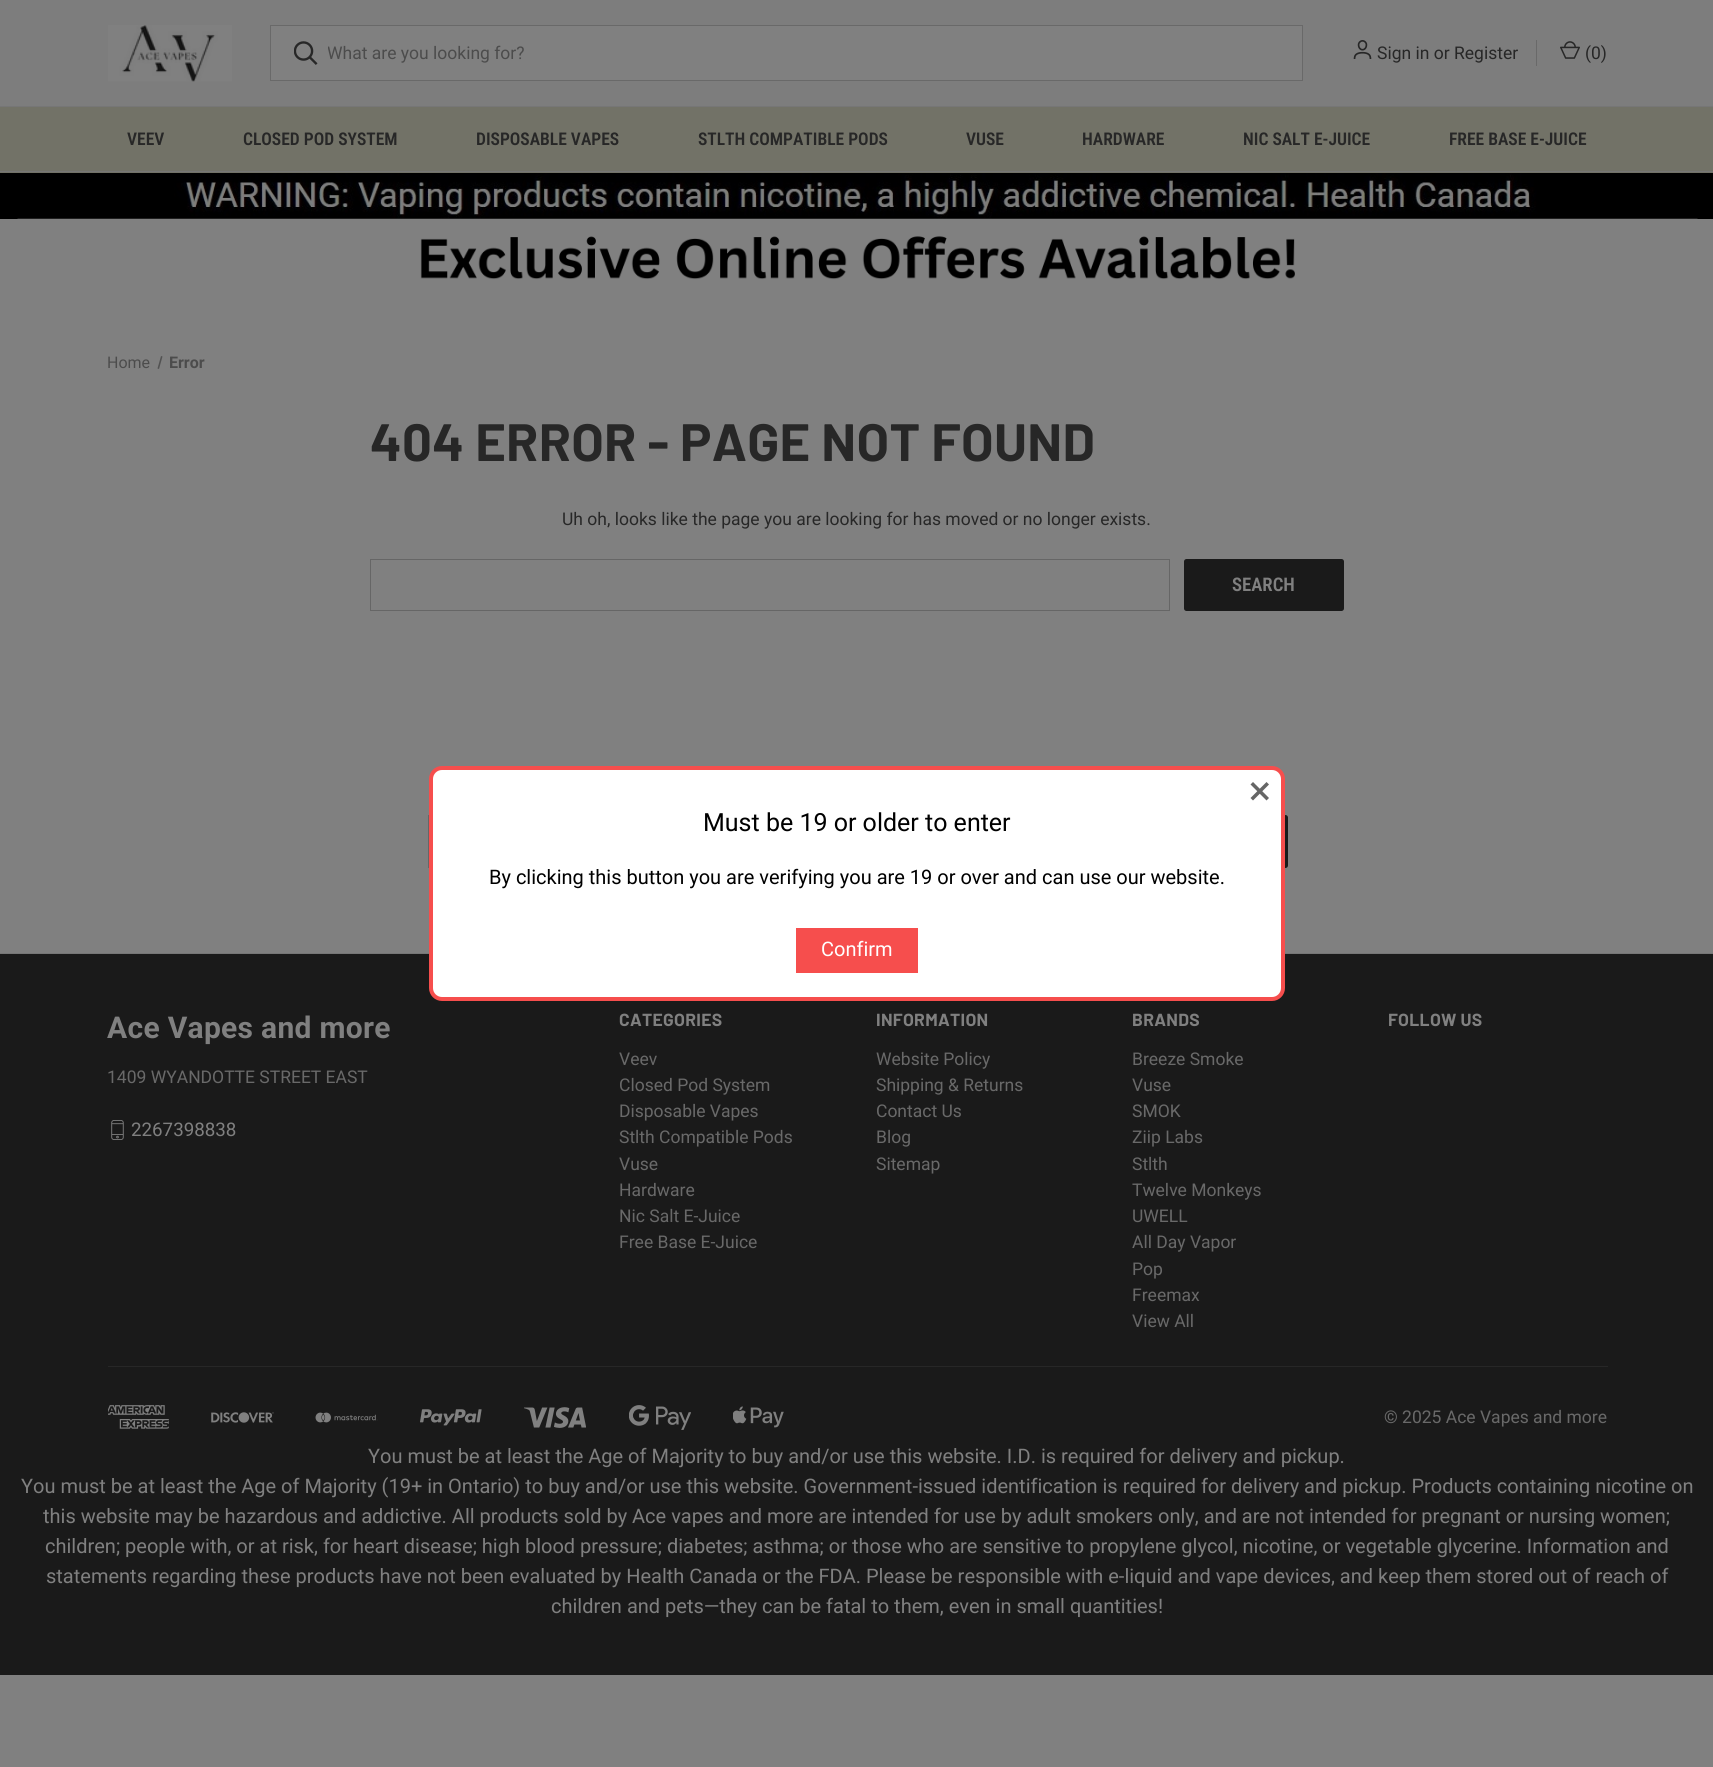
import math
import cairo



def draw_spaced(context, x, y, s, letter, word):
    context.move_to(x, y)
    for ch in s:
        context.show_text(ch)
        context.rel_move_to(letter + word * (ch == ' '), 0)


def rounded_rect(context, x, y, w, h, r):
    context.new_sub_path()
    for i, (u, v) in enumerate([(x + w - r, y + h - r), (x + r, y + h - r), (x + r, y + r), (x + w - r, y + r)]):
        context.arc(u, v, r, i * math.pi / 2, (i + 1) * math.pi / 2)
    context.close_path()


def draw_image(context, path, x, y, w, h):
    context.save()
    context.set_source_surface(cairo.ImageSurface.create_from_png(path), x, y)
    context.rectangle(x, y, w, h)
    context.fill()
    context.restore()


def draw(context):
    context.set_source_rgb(128 / 255, 128 / 255, 128 / 255)
    context.paint()
    context.set_source_rgb(125 / 255, 125 / 255, 125 / 255)
    context.rectangle(0, 0, 1713, 106)
    context.fill()
    draw_image(context, "images/1.png", 108, 25, 124, 57)
    context.set_source_rgb(128 / 255, 128 / 255, 128 / 255)
    context.rectangle(270.5, 25.5, 1032, 55)
    context.fill_preserve()
    context.set_source_rgb(105 / 255, 105 / 255, 105 / 255)
    context.set_line_width(1)
    context.stroke()
    draw_image(context, "images/2.png", 294, 41, 24, 24)
    draw_image(context, "images/3.png", 1353, 40, 19, 19)
    context.rectangle(1536, 40, 1, 26)
    context.fill()
    draw_image(context, "images/4.png", 1560, 41, 20, 18)
    context.set_source_rgb(114 / 255, 114 / 255, 103 / 255)
    context.rectangle(0, 107, 1713, 66)
    context.fill()
    context.set_source_rgb(118 / 255, 118 / 255, 118 / 255)
    context.rectangle(0, 106, 1713, 1)
    context.fill()
    context.rectangle(0, 171, 1713, 1)
    context.fill()
    context.set_source_rgb(0, 0, 0)
    context.rectangle(0, 173, 1713, 46)
    context.fill()
    draw_image(context, "images/5.png", 13, 173, 1689, 46)
    draw_image(context, "images/6.png", 17, 218, 1681, 62)
    context.set_source_rgb(82 / 255, 82 / 255, 82 / 255)
    context.new_path()
    context.move_to(161, 356)
    context.line_to(162.5, 356.5)
    context.line_to(159, 369)
    context.line_to(157.5, 368.5)
    context.close_path()
    context.fill()
    context.rectangle(370.5, 559.5, 799, 51)
    context.set_source_rgb(102 / 255, 102 / 255, 102 / 255)
    context.stroke()
    context.set_source_rgb(26 / 255, 26 / 255, 26 / 255)
    rounded_rect(context, 1184, 559, 160, 52, 2.5)
    context.fill()
    context.rectangle(428.5, 815.5, 661, 52)
    context.set_source_rgb(102 / 255, 102 / 255, 102 / 255)
    context.stroke()
    context.set_source_rgb(26 / 255, 26 / 255, 26 / 255)
    rounded_rect(context, 1103, 815, 185, 53, 2.5)
    context.fill()
    context.rectangle(0, 954, 1713, 721)
    context.fill()
    context.set_source_rgb(118 / 255, 118 / 255, 118 / 255)
    context.rectangle(0, 953, 1713, 1)
    context.fill()
    context.set_source_rgb(1, 1, 1)
    rounded_rect(context, 431, 768, 852, 231, 11)
    context.fill_preserve()
    context.set_source_rgb(246 / 255, 78 / 255, 77 / 255)
    context.set_line_width(4)
    context.stroke()
    context.set_source_rgb(102 / 255, 102 / 255, 102 / 255)
    context.new_path()
    context.move_to(1266.5, 782)
    context.line_to(1269, 784.5)
    context.line_to(1253, 800.5)
    context.line_to(1250.5, 798)
    context.close_path()
    context.fill()
    context.new_path()
    context.move_to(1250.5, 784.5)
    context.line_to(1253, 782)
    context.line_to(1269, 798)
    context.line_to(1266.5, 800.5)
    context.close_path()
    context.fill()
    context.set_source_rgb(246 / 255, 78 / 255, 77 / 255)
    context.rectangle(796, 928, 122, 45)
    context.fill()
    draw_image(context, "images/7.png", 111, 1120, 13, 20)
    context.set_source_rgb(39 / 255, 39 / 255, 39 / 255)
    context.rectangle(108, 1366, 1500, 1)
    context.fill()
    draw_image(context, "images/8.png", 108, 1405, 61, 24)
    draw_image(context, "images/9.png", 211, 1412, 63, 11)
    draw_image(context, "images/10.png", 315, 1412, 63, 11)
    draw_image(context, "images/11.png", 420, 1409, 62, 17)
    draw_image(context, "images/12.png", 524, 1407, 62, 21)
    draw_image(context, "images/13.png", 629, 1405, 62, 25)
    draw_image(context, "images/14.png", 733, 1406, 51, 22)
    context.save()
    context.rectangle(328, 44, 956, 20)
    context.clip()
    context.select_font_face("Roboto")
    context.set_font_size(17.5)
    context.set_source_rgb(76 / 255, 76 / 255, 76 / 255)
    context.move_to(327, 59)
    context.show_text("What are you looking for?")
    context.restore()
    context.select_font_face("Roboto")
    context.set_font_size(17.5)
    context.move_to(1377, 59)
    context.show_text("Sign in or Register")
    context.move_to(1585, 59)
    context.show_text("(0)")
    context.select_font_face("Roboto Condensed SemiBold")
    context.move_to(127, 145)
    context.show_text("VEEV")
    context.move_to(243, 145)
    context.show_text("CLOSED POD SYSTEM")
    context.move_to(476, 145)
    context.show_text("DISPOSABLE VAPES")
    context.move_to(698, 145)
    context.show_text("STLTH COMPATIBLE PODS")
    context.move_to(966, 145)
    context.show_text("VUSE")
    context.move_to(1082, 145)
    context.show_text("HARDWARE")
    context.move_to(1243, 145)
    context.show_text("NIC SALT E-JUICE")
    context.move_to(1449, 145)
    context.show_text("FREE BASE E-JUICE")
    context.select_font_face("Roboto")
    context.set_font_size(16)
    context.set_source_rgb(76 / 255, 76 / 255, 76 / 255)
    context.move_to(107, 368)
    context.show_text("Home")
    context.select_font_face("Roboto", cairo.FontSlant.NORMAL, cairo.FontWeight.BOLD)
    context.move_to(169, 368)
    context.show_text("Error")
    context.select_font_face("Barlow", cairo.FontSlant.NORMAL, cairo.FontWeight.BOLD)
    context.set_font_size(52.5)
    context.set_source_rgb(39 / 255, 39 / 255, 39 / 255)
    draw_spaced(context, 370, 461, "404 ERROR - PAGE NOT FOUND", 0.3, 0)
    context.select_font_face("Roboto")
    context.set_font_size(17.5)
    context.move_to(562, 525)
    context.show_text("Uh oh, looks like the page you are looking for has moved or no longer exists.")
    context.select_font_face("Roboto Condensed SemiBold")
    context.set_font_size(18.75)
    context.set_source_rgb(128 / 255, 128 / 255, 128 / 255)
    context.move_to(1232, 591)
    context.show_text("SEARCH")
    context.select_font_face("Roboto")
    context.set_font_size(25)
    context.set_source_rgb(0, 0, 0)
    context.move_to(703, 831)
    context.show_text("Must be 19 or older to enter")
    context.set_font_size(20)
    context.move_to(489, 884)
    context.show_text("By clicking this button you are verifying you are 19 or over and can use our website.")
    context.set_source_rgb(1, 1, 1)
    context.move_to(821, 956)
    context.show_text("Confirm")
    context.select_font_face("Roboto", cairo.FontSlant.NORMAL, cairo.FontWeight.BOLD)
    context.set_font_size(30)
    context.set_source_rgb(128 / 255, 128 / 255, 128 / 255)
    draw_spaced(context, 107, 1038, "Ace Vapes and more", 0.3, 0)
    context.select_font_face("Roboto")
    context.set_font_size(17.5)
    context.set_source_rgb(105 / 255, 105 / 255, 105 / 255)
    context.move_to(107, 1083)
    context.show_text("1409 WYANDOTTE STREET EAST")
    context.set_font_size(18.75)
    context.set_source_rgb(128 / 255, 128 / 255, 128 / 255)
    context.move_to(131, 1136)
    context.show_text("2267398838")
    context.select_font_face("Barlow", cairo.FontSlant.NORMAL, cairo.FontWeight.BOLD)
    context.set_font_size(17.5)
    draw_spaced(context, 619, 1026, "CATEGORIES", 0.3, 0)
    context.select_font_face("Roboto")
    context.set_source_rgb(105 / 255, 105 / 255, 105 / 255)
    context.move_to(619, 1065)
    context.show_text("Veev")
    context.move_to(619, 1091)
    context.show_text("Closed Pod System")
    context.move_to(619, 1117)
    context.show_text("Disposable Vapes")
    context.move_to(619, 1143)
    context.show_text("Stlth Compatible Pods")
    context.move_to(619, 1170)
    context.show_text("Vuse")
    context.move_to(619, 1196)
    context.show_text("Hardware")
    context.move_to(619, 1222)
    context.show_text("Nic Salt E-Juice")
    context.move_to(619, 1248)
    context.show_text("Free Base E-Juice")
    context.select_font_face("Barlow", cairo.FontSlant.NORMAL, cairo.FontWeight.BOLD)
    context.set_source_rgb(128 / 255, 128 / 255, 128 / 255)
    draw_spaced(context, 876, 1026, "INFORMATION", 0.3, 0)
    context.select_font_face("Roboto")
    context.set_source_rgb(105 / 255, 105 / 255, 105 / 255)
    context.move_to(876, 1065)
    context.show_text("Website Policy")
    context.move_to(876, 1091)
    context.show_text("Shipping & Returns")
    context.move_to(876, 1117)
    context.show_text("Contact Us")
    context.move_to(876, 1143)
    context.show_text("Blog")
    context.move_to(876, 1170)
    context.show_text("Sitemap")
    context.select_font_face("Barlow", cairo.FontSlant.NORMAL, cairo.FontWeight.BOLD)
    context.set_source_rgb(128 / 255, 128 / 255, 128 / 255)
    draw_spaced(context, 1132, 1026, "BRANDS", 0.3, 0)
    context.select_font_face("Roboto")
    context.set_source_rgb(105 / 255, 105 / 255, 105 / 255)
    context.move_to(1132, 1065)
    context.show_text("Breeze Smoke")
    context.move_to(1132, 1091)
    context.show_text("Vuse")
    context.move_to(1132, 1117)
    context.show_text("SMOK")
    context.move_to(1132, 1143)
    context.show_text("Ziip Labs")
    context.move_to(1132, 1170)
    context.show_text("Stlth")
    context.move_to(1132, 1196)
    context.show_text("Twelve Monkeys")
    context.move_to(1132, 1222)
    context.show_text("UWELL")
    context.move_to(1132, 1248)
    context.show_text("All Day Vapor")
    context.move_to(1132, 1275)
    context.show_text("Pop")
    context.move_to(1132, 1301)
    context.show_text("Freemax")
    context.move_to(1132, 1327)
    context.show_text("View All")
    context.select_font_face("Barlow", cairo.FontSlant.NORMAL, cairo.FontWeight.BOLD)
    context.set_source_rgb(128 / 255, 128 / 255, 128 / 255)
    draw_spaced(context, 1388, 1026, "FOLLOW US", 0.3, 0)
    context.select_font_face("Roboto")
    context.set_source_rgb(105 / 255, 105 / 255, 105 / 255)
    context.move_to(1384, 1423)
    context.show_text("© 2025 Ace Vapes and more")
    context.set_font_size(20)
    context.set_source_rgb(128 / 255, 128 / 255, 128 / 255)
    context.move_to(368, 1463)
    context.show_text("You must be at least the Age of Majority to buy and/or use this website. I.D. is required for delivery and pickup.")
    context.move_to(21, 1493)
    context.show_text("You must be at least the Age of Majority (19+ in Ontario) to buy and/or use this website. Government-issued identification is required for delivery and pickup. Products containing nicotine on")
    context.move_to(43, 1523)
    context.show_text("this website may be hazardous and addictive. All products sold by Ace vapes and more are intended for use by adult smokers only, and are not intended for pregnant or nursing women;")
    context.move_to(45, 1553)
    context.show_text("children; people with, or at risk, for heart disease; high blood pressure; diabetes; asthma; or those who are sensitive to propylene glycol, nicotine, or vegetable glycerine. Information and")
    context.move_to(46, 1583)
    context.show_text("statements regarding these products have not been evaluated by Health Canada or the FDA. Please be responsible with e-liquid and vape devices, and keep them stored out of reach of")
    context.move_to(551, 1613)
    context.show_text("children and pets—they can be fatal to them, even in small quantities!")


surface = cairo.ImageSurface(cairo.Format.RGB24, 1713, 1767)
context = cairo.Context(surface)
options = cairo.FontOptions()
options.set_hint_metrics(cairo.HintMetrics.OFF)
options.set_hint_style(cairo.HintStyle.NONE)
context.set_font_options(options)
context.set_miter_limit(4)
draw(context)
surface.write_to_png("out.png")
